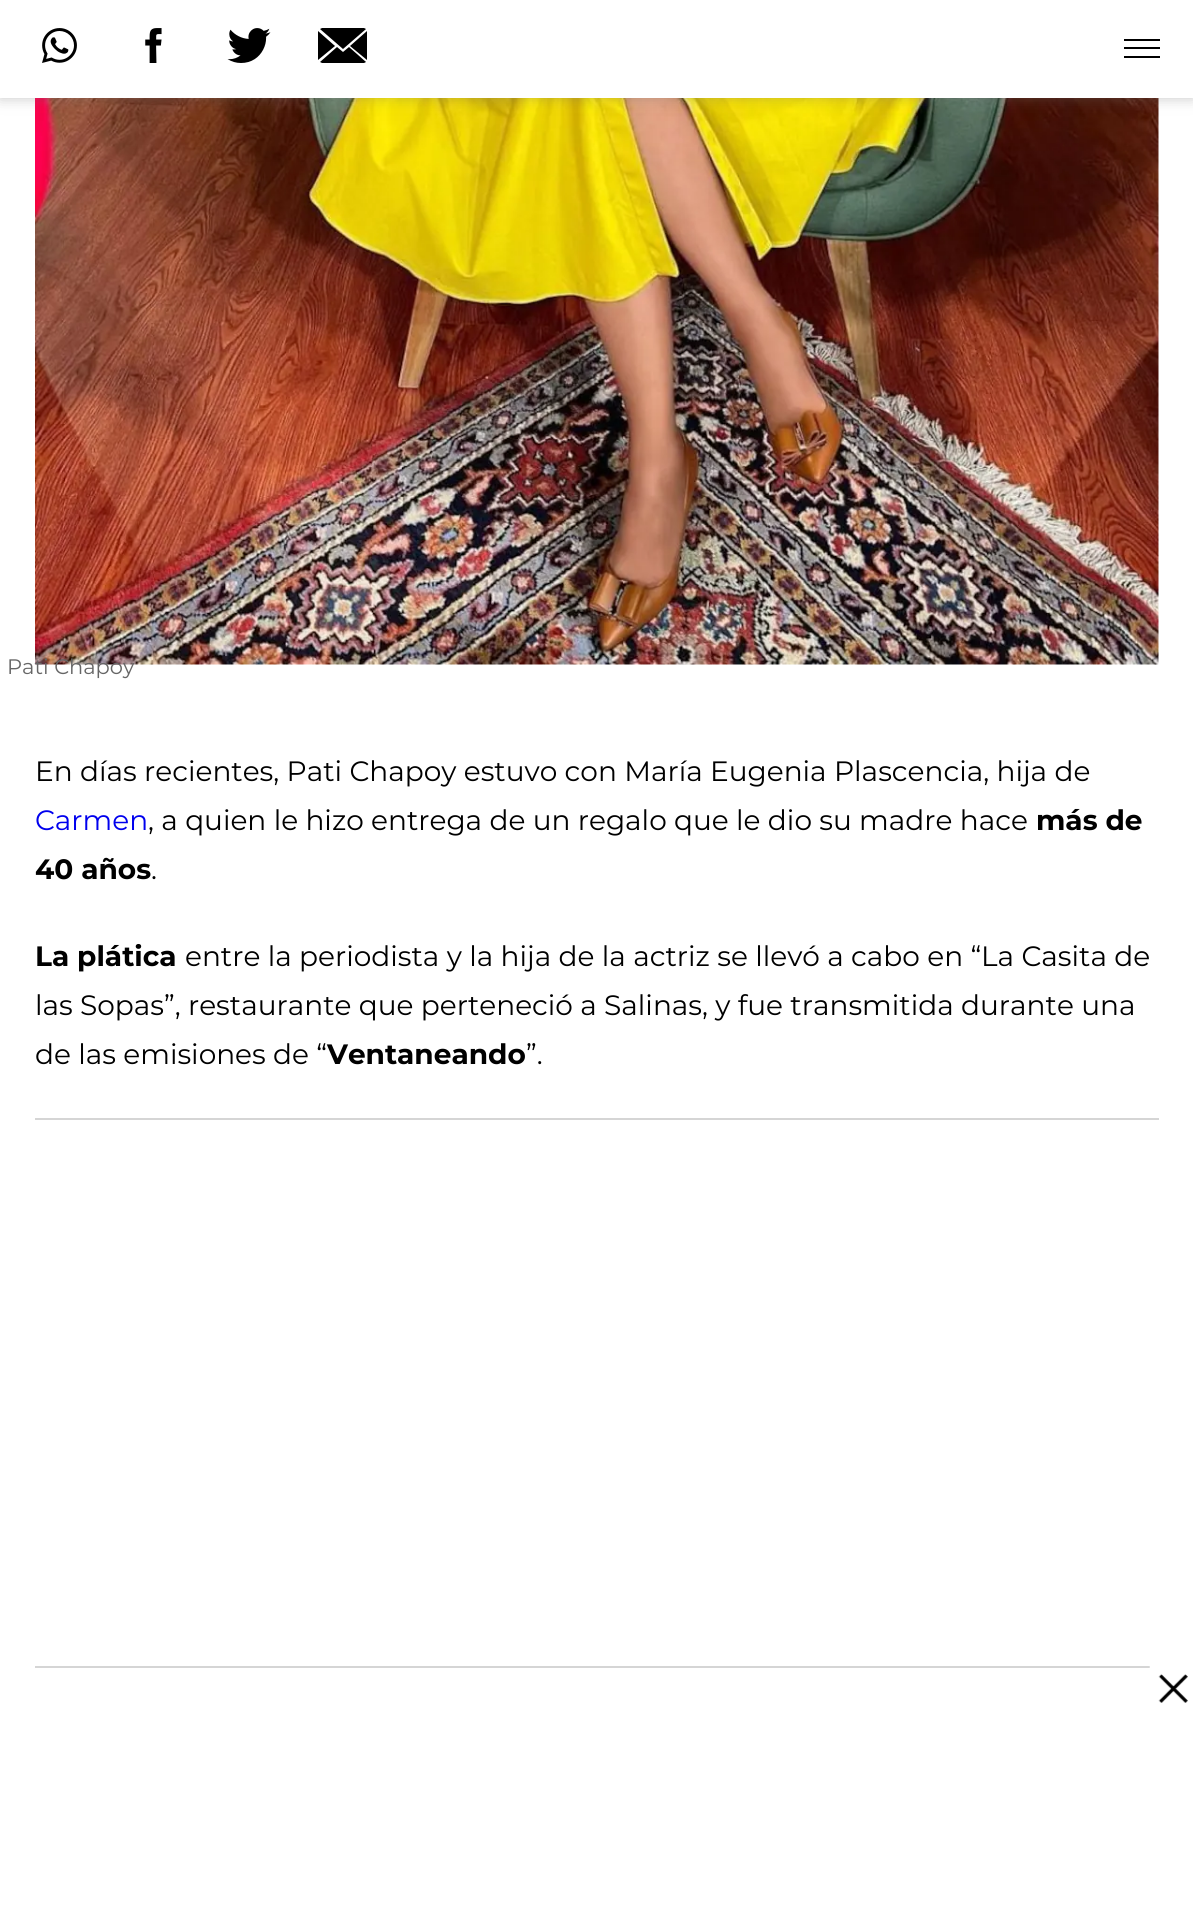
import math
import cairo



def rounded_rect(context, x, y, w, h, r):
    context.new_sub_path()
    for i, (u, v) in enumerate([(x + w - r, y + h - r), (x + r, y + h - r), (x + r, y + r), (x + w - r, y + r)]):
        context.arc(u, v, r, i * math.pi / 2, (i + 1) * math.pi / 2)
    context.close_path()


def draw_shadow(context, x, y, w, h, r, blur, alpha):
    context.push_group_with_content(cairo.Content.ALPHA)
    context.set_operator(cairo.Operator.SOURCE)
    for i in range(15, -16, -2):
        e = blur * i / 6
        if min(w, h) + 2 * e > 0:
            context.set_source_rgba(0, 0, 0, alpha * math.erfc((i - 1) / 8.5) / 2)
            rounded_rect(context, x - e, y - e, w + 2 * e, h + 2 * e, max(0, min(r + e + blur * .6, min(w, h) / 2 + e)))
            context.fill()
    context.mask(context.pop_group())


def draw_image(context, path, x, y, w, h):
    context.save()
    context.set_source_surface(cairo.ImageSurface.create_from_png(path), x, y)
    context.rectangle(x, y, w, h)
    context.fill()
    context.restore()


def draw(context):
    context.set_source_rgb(1, 1, 1)
    context.paint()
    draw_image(context, "images/4.png", 35, 98, 1124, 567)
    context.set_source_rgb(113 / 255, 113 / 255, 113 / 255)
    draw_shadow(context, 0, 0, 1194, 98, 0, 7, 0.4)
    context.set_source_rgb(1, 1, 1)
    context.rectangle(0, 0, 1193, 98)
    context.fill()
    draw_image(context, "images/1.png", 42, 28, 35, 35)
    draw_image(context, "images/2.png", 145, 28, 17, 35)
    draw_image(context, "images/3.png", 227, 28, 44, 35)
    context.set_source_rgb(0, 0, 0)
    context.new_path()
    context.move_to(349, 47)
    context.line_to(366, 62)
    context.line_to(364, 63)
    context.line_to(322, 63)
    context.line_to(320, 62)
    context.line_to(337, 47)
    context.line_to(343, 52)
    context.close_path()
    context.move_to(343, 49)
    context.line_to(320, 29)
    context.line_to(322, 28)
    context.line_to(364, 28)
    context.line_to(366, 29)
    context.close_path()
    context.move_to(367, 60)
    context.line_to(350, 46)
    context.line_to(367, 31)
    context.close_path()
    context.move_to(318, 60)
    context.line_to(318, 31)
    context.line_to(335, 46)
    context.close_path()
    context.fill()
    context.rectangle(1124, 47, 36, 2)
    context.fill()
    context.rectangle(1124, 39, 36, 2)
    context.fill()
    context.rectangle(1124, 56, 36, 2)
    context.fill()
    context.set_source_rgb(213 / 255, 213 / 255, 213 / 255)
    context.rectangle(35, 1118, 1124, 2)
    context.fill()
    context.rectangle(35, 1666, 1115, 2)
    context.fill()
    draw_image(context, "images/5.png", 1149, 1666, 39, 37)
    context.select_font_face("Montserrat")
    context.set_font_size(21)
    context.set_source_rgb(102 / 255, 102 / 255, 102 / 255)
    context.move_to(7, 674)
    context.show_text("Pati Chapoy")
    context.set_font_size(28)
    context.set_source_rgb(0, 0, 0)
    context.move_to(35, 781)
    context.show_text("En días recientes, Pati Chapoy estuvo con María Eugenia Plascencia, hija de")
    context.set_source_rgb(0, 0, 238 / 255)
    context.move_to(35, 830)
    context.show_text("Carmen")
    context.set_source_rgb(0, 0, 0)
    context.move_to(148, 830)
    context.show_text(", a quien le hizo entrega de un regalo que le dio su madre hace")
    context.select_font_face("Montserrat", cairo.FontSlant.NORMAL, cairo.FontWeight.BOLD)
    context.move_to(1036, 830)
    context.show_text("más de")
    context.move_to(35, 879)
    context.show_text("40 años")
    context.select_font_face("Montserrat")
    context.move_to(151, 879)
    context.show_text(".")
    context.select_font_face("Montserrat", cairo.FontSlant.NORMAL, cairo.FontWeight.BOLD)
    context.move_to(35, 966)
    context.show_text("La plática")
    context.select_font_face("Montserrat")
    context.move_to(185, 966)
    context.show_text("entre la periodista y la hija de la actriz se llevó a cabo en “La Casita de")
    context.move_to(35, 1015)
    context.show_text("las Sopas”, restaurante que perteneció a Salinas, y fue transmitida durante una")
    context.move_to(35, 1064)
    context.show_text("de las emisiones de “")
    context.select_font_face("Montserrat", cairo.FontSlant.NORMAL, cairo.FontWeight.BOLD)
    context.move_to(327, 1064)
    context.show_text("Ventaneando")
    context.select_font_face("Montserrat")
    context.move_to(526, 1064)
    context.show_text("”.")


surface = cairo.ImageSurface(cairo.Format.RGB24, 1193, 1925)
context = cairo.Context(surface)
options = cairo.FontOptions()
options.set_hint_metrics(cairo.HintMetrics.OFF)
options.set_hint_style(cairo.HintStyle.NONE)
context.set_font_options(options)
context.set_miter_limit(4)
draw(context)
surface.write_to_png("out.png")
